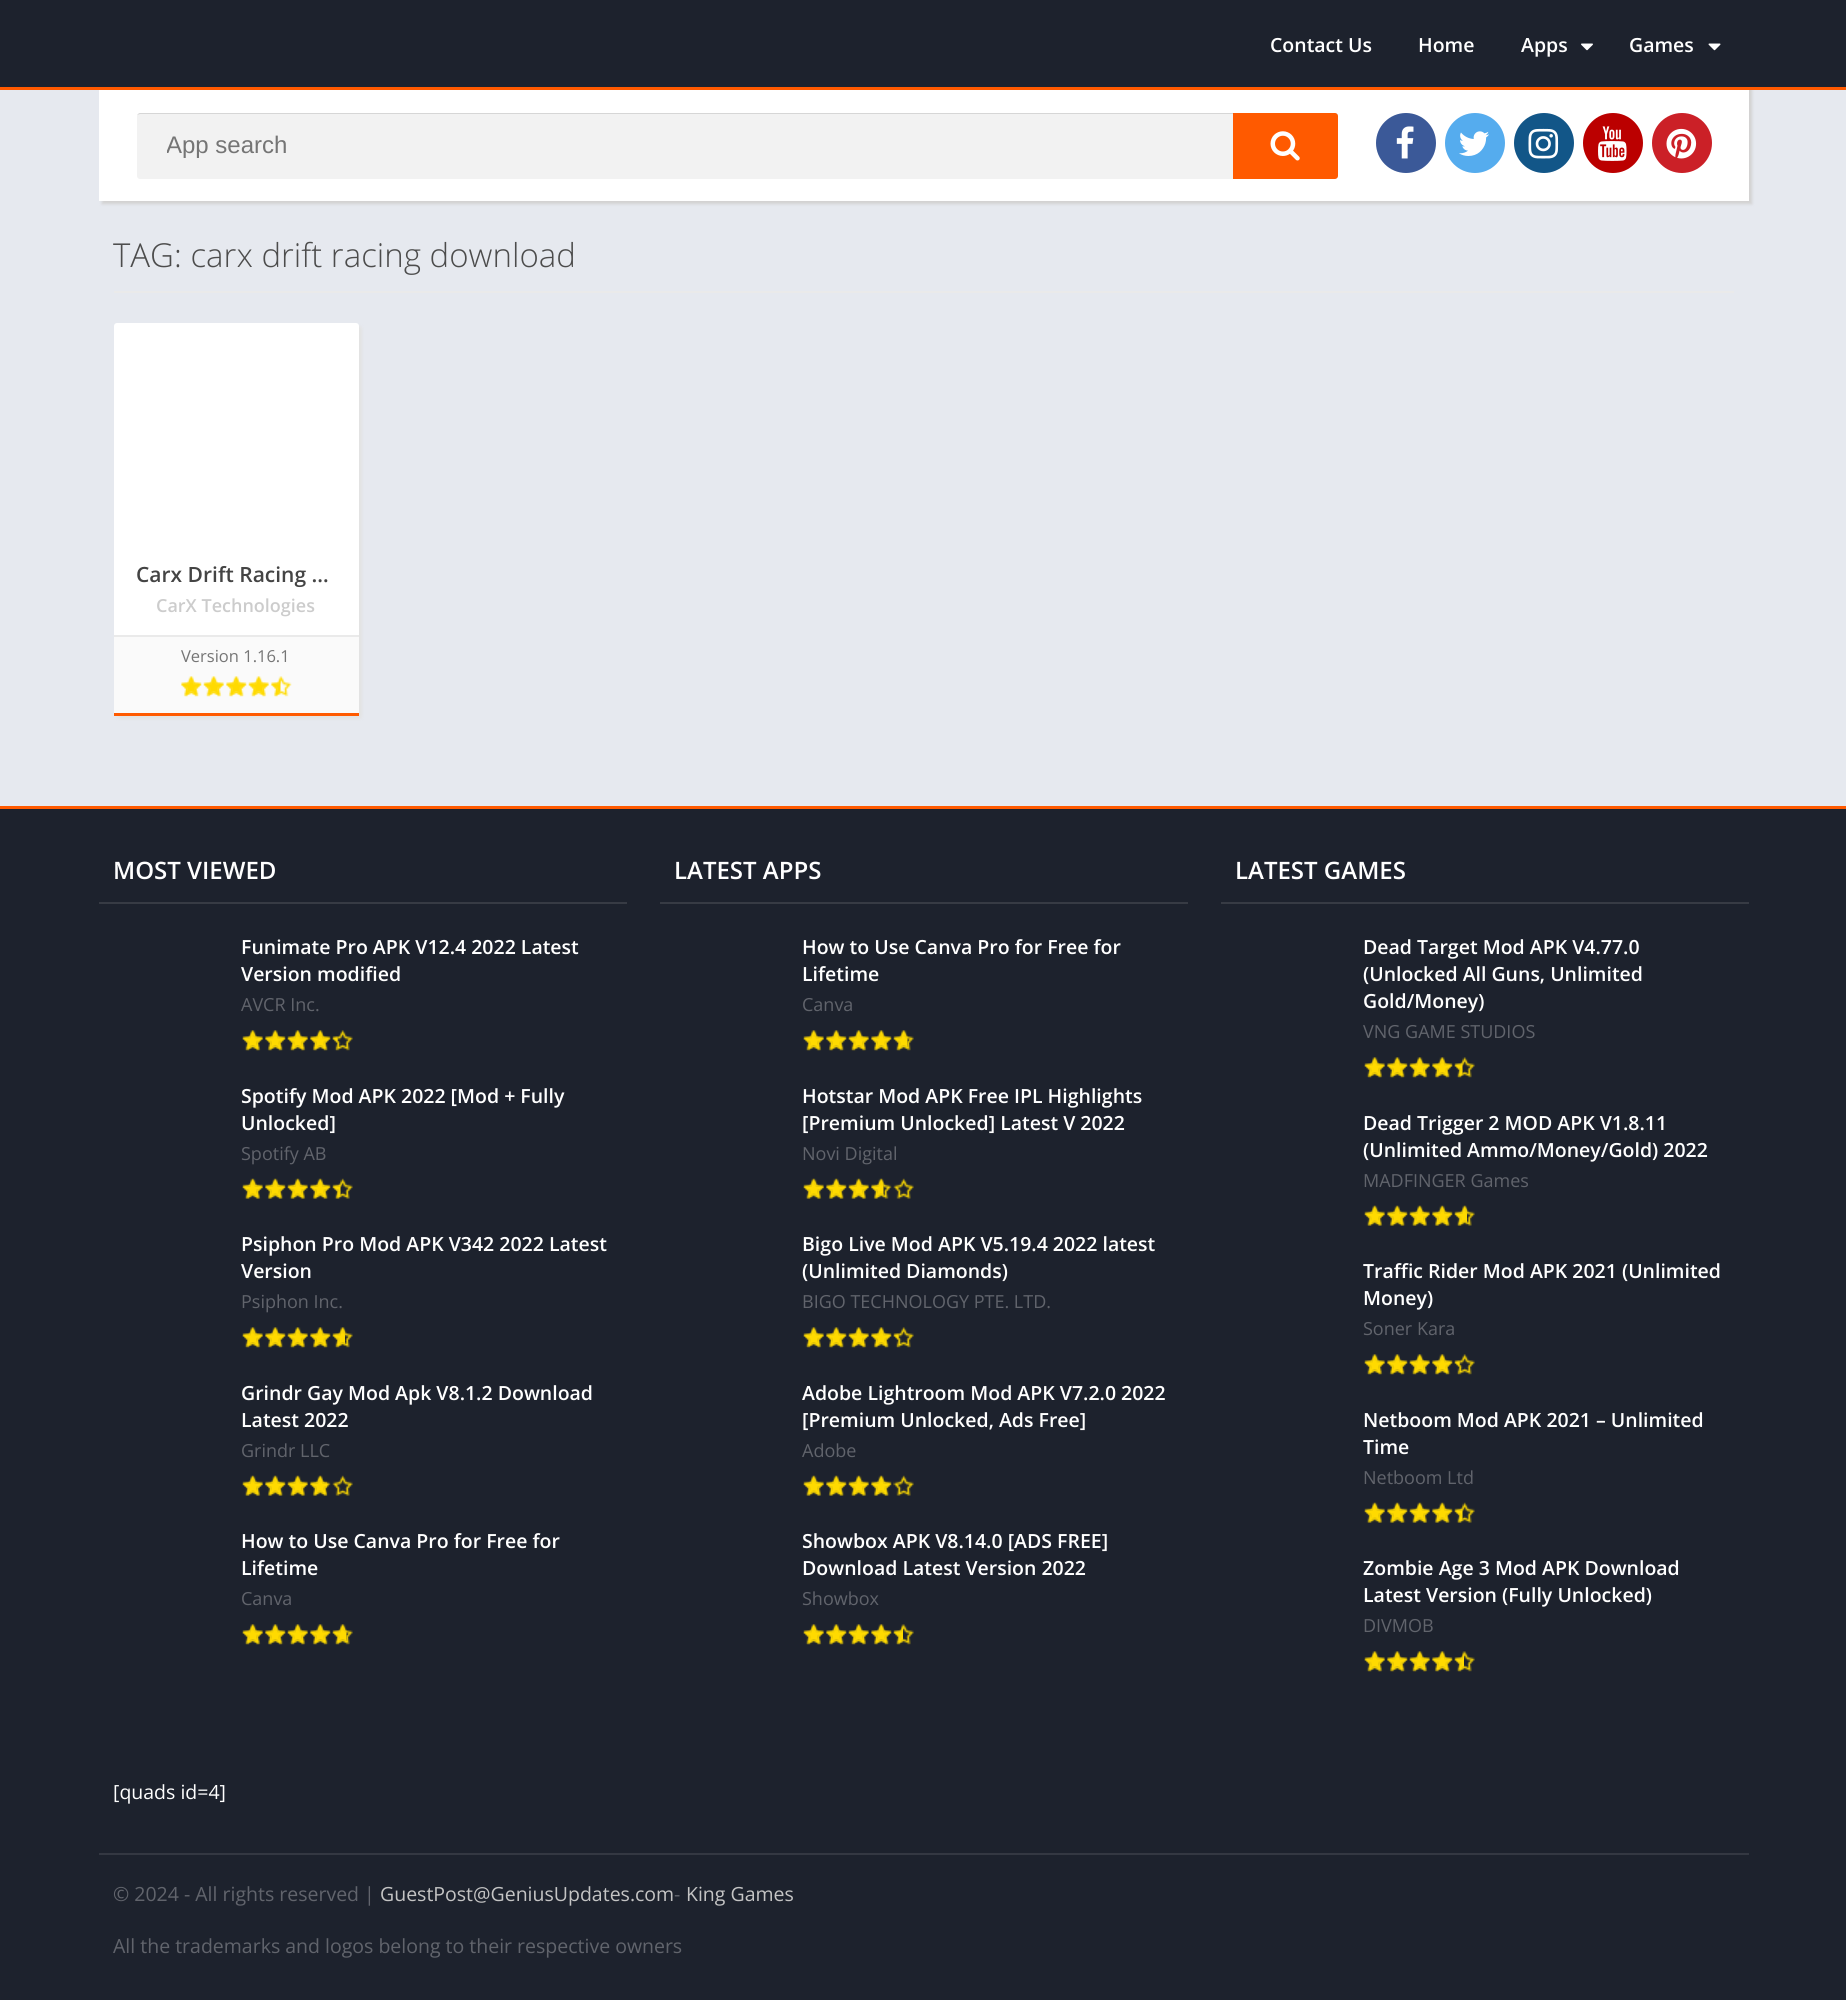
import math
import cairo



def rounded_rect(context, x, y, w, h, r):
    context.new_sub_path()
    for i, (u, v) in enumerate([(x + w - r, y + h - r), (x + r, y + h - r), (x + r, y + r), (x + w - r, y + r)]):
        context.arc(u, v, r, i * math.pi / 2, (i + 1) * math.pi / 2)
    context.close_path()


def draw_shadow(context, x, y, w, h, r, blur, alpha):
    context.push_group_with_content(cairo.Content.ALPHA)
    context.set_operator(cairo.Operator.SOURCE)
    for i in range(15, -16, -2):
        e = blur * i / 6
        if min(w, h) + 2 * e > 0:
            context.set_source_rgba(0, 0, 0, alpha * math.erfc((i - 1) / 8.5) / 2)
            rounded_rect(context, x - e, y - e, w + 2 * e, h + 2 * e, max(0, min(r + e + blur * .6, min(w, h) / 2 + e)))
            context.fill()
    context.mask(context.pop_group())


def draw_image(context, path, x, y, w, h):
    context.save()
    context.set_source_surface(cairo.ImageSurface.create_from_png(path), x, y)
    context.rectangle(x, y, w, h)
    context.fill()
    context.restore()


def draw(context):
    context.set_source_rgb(230 / 255, 233 / 255, 239 / 255)
    context.paint()
    context.set_source_rgb(210 / 255, 209 / 255, 209 / 255)
    draw_shadow(context, 102, 3, 1650, 201, 0, 1.5, 1)
    context.set_source_rgb(29 / 255, 34 / 255, 45 / 255)
    context.rectangle(0, 0, 1846, 87)
    context.fill()
    context.set_source_rgb(1, 90 / 255, 0)
    context.rectangle(0, 87, 1846, 3)
    context.fill()
    draw_image(context, "images/1.png", 1581, 43, 12, 8)
    draw_image(context, "images/2.png", 1708, 43, 13, 8)
    context.set_source_rgb(1, 1, 1)
    context.rectangle(99, 90, 1650, 111)
    context.fill()
    context.set_source_rgb(242 / 255, 242 / 255, 242 / 255)
    rounded_rect(context, 137, 113, 1201, 66, 3)
    context.fill()
    context.set_source_rgba(0, 0, 0, 0.12)
    context.new_path()
    context.move_to(140, 114)
    context.line_to(1335, 114)
    context.curve_to(1337, 114, 1338, 115, 1338, 117)
    context.line_to(1338, 116)
    context.curve_to(1338, 114, 1337, 113, 1335, 113)
    context.line_to(140, 113)
    context.curve_to(139, 113, 138, 114, 137, 115)
    context.close_path()
    context.fill()
    context.set_source_rgb(1, 90 / 255, 0)
    context.new_path()
    context.move_to(1233, 113)
    context.line_to(1335, 113)
    context.curve_to(1336.5, 113, 1338, 114.5, 1338, 116)
    context.line_to(1338, 176)
    context.curve_to(1338, 177.5, 1336.5, 179, 1335, 179)
    context.line_to(1233, 179)
    context.close_path()
    context.fill()
    draw_image(context, "images/3.png", 1270, 131, 30, 30)
    context.set_source_rgb(59 / 255, 89 / 255, 152 / 255)
    context.arc(1406, 143, 30, 0, 2 * math.pi)
    context.fill()
    draw_image(context, "images/4.png", 1396, 126, 18, 33)
    context.set_source_rgb(85 / 255, 172 / 255, 238 / 255)
    context.arc(1475, 143, 30, 0, 2 * math.pi)
    context.fill()
    draw_image(context, "images/5.png", 1459, 131, 30, 25)
    context.set_source_rgb(18 / 255, 86 / 255, 136 / 255)
    context.arc(1544, 143, 30, 0, 2 * math.pi)
    context.fill()
    draw_image(context, "images/6.png", 1528, 128, 31, 31)
    context.set_source_rgb(187 / 255, 0, 0)
    context.arc(1613, 143, 30, 0, 2 * math.pi)
    context.fill()
    draw_image(context, "images/7.png", 1598, 126, 29, 35)
    context.set_source_rgb(203 / 255, 32 / 255, 39 / 255)
    context.arc(1682, 143, 30, 0, 2 * math.pi)
    context.fill()
    draw_image(context, "images/8.png", 1666, 128, 31, 31)
    context.set_source_rgb(234 / 255, 234 / 255, 234 / 255)
    context.rectangle(114, 291, 1620, 2)
    context.fill()
    context.set_source_rgb(227 / 255, 227 / 255, 227 / 255)
    draw_shadow(context, 117, 326, 245, 393, 3, 1.5, 1)
    context.set_source_rgb(1, 1, 1)
    rounded_rect(context, 114, 323, 245, 393, 3)
    context.fill()
    context.set_source_rgb(250 / 255, 250 / 255, 250 / 255)
    context.rectangle(114, 637, 245, 76)
    context.fill()
    context.set_source_rgb(234 / 255, 234 / 255, 234 / 255)
    context.rectangle(114, 635, 245, 2)
    context.fill()
    context.set_source_rgb(1, 90 / 255, 0)
    context.rectangle(114, 713, 245, 3)
    context.fill()
    draw_image(context, "images/9.png", 181, 676, 111, 21)
    draw_image(context, "images/10.png", 181, 676, 100, 21)
    context.set_source_rgb(29 / 255, 34 / 255, 45 / 255)
    context.rectangle(0, 809, 1846, 1191)
    context.fill()
    context.set_source_rgb(1, 90 / 255, 0)
    context.rectangle(0, 806, 1846, 3)
    context.fill()
    context.set_source_rgb(52 / 255, 56 / 255, 66 / 255)
    context.rectangle(99, 1853, 1650, 2)
    context.fill()
    context.set_source_rgb(55 / 255, 59 / 255, 68 / 255)
    context.rectangle(99, 902, 528, 2)
    context.fill()
    draw_image(context, "images/11.png", 242, 1030, 111, 21)
    draw_image(context, "images/12.png", 242, 1030, 96, 21)
    draw_image(context, "images/13.png", 242, 1178, 111, 21)
    draw_image(context, "images/14.png", 242, 1178, 99, 21)
    draw_image(context, "images/15.png", 242, 1327, 111, 21)
    draw_image(context, "images/16.png", 242, 1327, 103, 21)
    draw_image(context, "images/17.png", 242, 1475, 111, 21)
    draw_image(context, "images/18.png", 242, 1475, 85, 21)
    draw_image(context, "images/19.png", 242, 1624, 111, 21)
    draw_image(context, "images/20.png", 242, 1624, 105, 21)
    context.rectangle(660, 902, 528, 2)
    context.fill()
    draw_image(context, "images/21.png", 803, 1030, 111, 21)
    draw_image(context, "images/22.png", 803, 1030, 105, 21)
    draw_image(context, "images/23.png", 803, 1178, 111, 21)
    draw_image(context, "images/24.png", 803, 1178, 81, 21)
    draw_image(context, "images/25.png", 803, 1327, 111, 21)
    draw_image(context, "images/26.png", 803, 1327, 96, 21)
    draw_image(context, "images/27.png", 803, 1475, 111, 21)
    draw_image(context, "images/28.png", 803, 1475, 91, 21)
    draw_image(context, "images/29.png", 803, 1624, 111, 21)
    draw_image(context, "images/30.png", 803, 1624, 100, 21)
    context.rectangle(1221, 902, 528, 2)
    context.fill()
    draw_image(context, "images/31.png", 1364, 1057, 111, 21)
    draw_image(context, "images/32.png", 1364, 1057, 99, 21)
    draw_image(context, "images/33.png", 1364, 1205, 111, 21)
    draw_image(context, "images/34.png", 1364, 1205, 103, 21)
    draw_image(context, "images/35.png", 1364, 1354, 111, 21)
    draw_image(context, "images/36.png", 1364, 1354, 96, 21)
    draw_image(context, "images/37.png", 1364, 1502, 111, 21)
    draw_image(context, "images/38.png", 1364, 1502, 99, 21)
    draw_image(context, "images/39.png", 1364, 1651, 111, 21)
    draw_image(context, "images/40.png", 1364, 1651, 100, 21)
    context.select_font_face("Open Sans SemiBold")
    context.set_font_size(19.5)
    context.set_source_rgb(1, 1, 1)
    context.move_to(1270, 52)
    context.show_text("Contact Us")
    context.move_to(1418, 52)
    context.show_text("Home")
    context.move_to(1521, 52)
    context.show_text("Apps")
    context.move_to(1629, 52)
    context.show_text("Games")
    context.save()
    context.rectangle(167, 132, 1006, 27)
    context.clip()
    context.select_font_face("Liberation Sans")
    context.set_font_size(24)
    context.set_source_rgb(117 / 255, 117 / 255, 117 / 255)
    context.move_to(166, 153)
    context.show_text("App search")
    context.restore()
    context.select_font_face("Open Sans Light")
    context.set_font_size(33)
    context.set_source_rgb(76 / 255, 76 / 255, 76 / 255)
    context.move_to(113, 267)
    context.show_text("TAG: carx drift racing download")
    context.select_font_face("Open Sans SemiBold")
    context.set_font_size(21)
    context.set_source_rgb(68 / 255, 68 / 255, 68 / 255)
    context.move_to(136, 582)
    context.show_text("Carx Drift Racing …")
    context.set_font_size(18)
    context.set_source_rgb(204 / 255, 204 / 255, 204 / 255)
    context.move_to(156, 612)
    context.show_text("CarX Technologies")
    context.select_font_face("Open Sans")
    context.set_font_size(16.5)
    context.set_source_rgb(117 / 255, 117 / 255, 117 / 255)
    context.move_to(181, 662)
    context.show_text("Version 1.16.1")
    context.select_font_face("Open Sans SemiBold")
    context.set_font_size(24)
    context.set_source_rgb(1, 1, 1)
    context.move_to(113, 879)
    context.show_text("MOST VIEWED")
    context.set_font_size(19.5)
    context.move_to(241, 954)
    context.show_text("Funimate Pro APK V12.4 2022 Latest")
    context.move_to(241, 981)
    context.show_text("Version modified")
    context.select_font_face("Open Sans")
    context.set_font_size(18)
    context.set_source_rgb(97 / 255, 100 / 255, 108 / 255)
    context.move_to(241, 1011)
    context.show_text("AVCR Inc.")
    context.select_font_face("Open Sans SemiBold")
    context.set_font_size(19.5)
    context.set_source_rgb(1, 1, 1)
    context.move_to(241, 1103)
    context.show_text("Spotify Mod APK 2022 [Mod + Fully")
    context.move_to(241, 1130)
    context.show_text("Unlocked]")
    context.select_font_face("Open Sans")
    context.set_font_size(18)
    context.set_source_rgb(97 / 255, 100 / 255, 108 / 255)
    context.move_to(241, 1160)
    context.show_text("Spotify AB")
    context.select_font_face("Open Sans SemiBold")
    context.set_font_size(19.5)
    context.set_source_rgb(1, 1, 1)
    context.move_to(241, 1251)
    context.show_text("Psiphon Pro Mod APK V342 2022 Latest")
    context.move_to(241, 1278)
    context.show_text("Version")
    context.select_font_face("Open Sans")
    context.set_font_size(18)
    context.set_source_rgb(97 / 255, 100 / 255, 108 / 255)
    context.move_to(241, 1308)
    context.show_text("Psiphon Inc.")
    context.select_font_face("Open Sans SemiBold")
    context.set_font_size(19.5)
    context.set_source_rgb(1, 1, 1)
    context.move_to(241, 1400)
    context.show_text("Grindr Gay Mod Apk V8.1.2 Download")
    context.move_to(241, 1427)
    context.show_text("Latest 2022")
    context.select_font_face("Open Sans")
    context.set_font_size(18)
    context.set_source_rgb(97 / 255, 100 / 255, 108 / 255)
    context.move_to(241, 1457)
    context.show_text("Grindr LLC")
    context.select_font_face("Open Sans SemiBold")
    context.set_font_size(19.5)
    context.set_source_rgb(1, 1, 1)
    context.move_to(241, 1548)
    context.show_text("How to Use Canva Pro for Free for")
    context.move_to(241, 1575)
    context.show_text("Lifetime")
    context.select_font_face("Open Sans")
    context.set_font_size(18)
    context.set_source_rgb(97 / 255, 100 / 255, 108 / 255)
    context.move_to(241, 1605)
    context.show_text("Canva")
    context.select_font_face("Open Sans SemiBold")
    context.set_font_size(24)
    context.set_source_rgb(1, 1, 1)
    context.move_to(674, 879)
    context.show_text("LATEST APPS")
    context.set_font_size(19.5)
    context.move_to(802, 954)
    context.show_text("How to Use Canva Pro for Free for")
    context.move_to(802, 981)
    context.show_text("Lifetime")
    context.select_font_face("Open Sans")
    context.set_font_size(18)
    context.set_source_rgb(97 / 255, 100 / 255, 108 / 255)
    context.move_to(802, 1011)
    context.show_text("Canva")
    context.select_font_face("Open Sans SemiBold")
    context.set_font_size(19.5)
    context.set_source_rgb(1, 1, 1)
    context.move_to(802, 1103)
    context.show_text("Hotstar Mod APK Free IPL Highlights")
    context.move_to(802, 1130)
    context.show_text("[Premium Unlocked] Latest V 2022")
    context.select_font_face("Open Sans")
    context.set_font_size(18)
    context.set_source_rgb(97 / 255, 100 / 255, 108 / 255)
    context.move_to(802, 1160)
    context.show_text("Novi Digital")
    context.select_font_face("Open Sans SemiBold")
    context.set_font_size(19.5)
    context.set_source_rgb(1, 1, 1)
    context.move_to(802, 1251)
    context.show_text("Bigo Live Mod APK V5.19.4 2022 latest")
    context.move_to(802, 1278)
    context.show_text("(Unlimited Diamonds)")
    context.select_font_face("Open Sans")
    context.set_font_size(18)
    context.set_source_rgb(97 / 255, 100 / 255, 108 / 255)
    context.move_to(802, 1308)
    context.show_text("BIGO TECHNOLOGY PTE. LTD.")
    context.select_font_face("Open Sans SemiBold")
    context.set_font_size(19.5)
    context.set_source_rgb(1, 1, 1)
    context.move_to(802, 1400)
    context.show_text("Adobe Lightroom Mod APK V7.2.0 2022")
    context.move_to(802, 1427)
    context.show_text("[Premium Unlocked, Ads Free]")
    context.select_font_face("Open Sans")
    context.set_font_size(18)
    context.set_source_rgb(97 / 255, 100 / 255, 108 / 255)
    context.move_to(802, 1457)
    context.show_text("Adobe")
    context.select_font_face("Open Sans SemiBold")
    context.set_font_size(19.5)
    context.set_source_rgb(1, 1, 1)
    context.move_to(802, 1548)
    context.show_text("Showbox APK V8.14.0 [ADS FREE]")
    context.move_to(802, 1575)
    context.show_text("Download Latest Version 2022")
    context.select_font_face("Open Sans")
    context.set_font_size(18)
    context.set_source_rgb(97 / 255, 100 / 255, 108 / 255)
    context.move_to(802, 1605)
    context.show_text("Showbox")
    context.select_font_face("Open Sans SemiBold")
    context.set_font_size(24)
    context.set_source_rgb(1, 1, 1)
    context.move_to(1235, 879)
    context.show_text("LATEST GAMES")
    context.set_font_size(19.5)
    context.move_to(1363, 954)
    context.show_text("Dead Target Mod APK V4.77.0")
    context.move_to(1363, 981)
    context.show_text("(Unlocked All Guns, Unlimited")
    context.move_to(1363, 1008)
    context.show_text("Gold/Money)")
    context.select_font_face("Open Sans")
    context.set_font_size(18)
    context.set_source_rgb(97 / 255, 100 / 255, 108 / 255)
    context.move_to(1363, 1038)
    context.show_text("VNG GAME STUDIOS")
    context.select_font_face("Open Sans SemiBold")
    context.set_font_size(19.5)
    context.set_source_rgb(1, 1, 1)
    context.move_to(1363, 1130)
    context.show_text("Dead Trigger 2 MOD APK V1.8.11")
    context.move_to(1363, 1157)
    context.show_text("(Unlimited Ammo/Money/Gold) 2022")
    context.select_font_face("Open Sans")
    context.set_font_size(18)
    context.set_source_rgb(97 / 255, 100 / 255, 108 / 255)
    context.move_to(1363, 1187)
    context.show_text("MADFINGER Games")
    context.select_font_face("Open Sans SemiBold")
    context.set_font_size(19.5)
    context.set_source_rgb(1, 1, 1)
    context.move_to(1363, 1278)
    context.show_text("Traffic Rider Mod APK 2021 (Unlimited")
    context.move_to(1363, 1305)
    context.show_text("Money)")
    context.select_font_face("Open Sans")
    context.set_font_size(18)
    context.set_source_rgb(97 / 255, 100 / 255, 108 / 255)
    context.move_to(1363, 1335)
    context.show_text("Soner Kara")
    context.select_font_face("Open Sans SemiBold")
    context.set_font_size(19.5)
    context.set_source_rgb(1, 1, 1)
    context.move_to(1363, 1427)
    context.show_text("Netboom Mod APK 2021 – Unlimited")
    context.move_to(1363, 1454)
    context.show_text("Time")
    context.select_font_face("Open Sans")
    context.set_font_size(18)
    context.set_source_rgb(97 / 255, 100 / 255, 108 / 255)
    context.move_to(1363, 1484)
    context.show_text("Netboom Ltd")
    context.select_font_face("Open Sans SemiBold")
    context.set_font_size(19.5)
    context.set_source_rgb(1, 1, 1)
    context.move_to(1363, 1575)
    context.show_text("Zombie Age 3 Mod APK Download")
    context.move_to(1363, 1602)
    context.show_text("Latest Version (Fully Unlocked)")
    context.select_font_face("Open Sans")
    context.set_font_size(18)
    context.set_source_rgb(97 / 255, 100 / 255, 108 / 255)
    context.move_to(1363, 1632)
    context.show_text("DIVMOB")
    context.set_font_size(19.5)
    context.set_source_rgb(1, 1, 1)
    context.move_to(113, 1799)
    context.show_text("[quads id=4]")
    context.set_source_rgb(97 / 255, 100 / 255, 108 / 255)
    context.move_to(113, 1901)
    context.show_text("© 2024 - All rights reserved |")
    context.set_source_rgb(196 / 255, 196 / 255, 196 / 255)
    context.move_to(380, 1901)
    context.show_text("GuestPost@GeniusUpdates.com")
    context.set_source_rgb(97 / 255, 100 / 255, 108 / 255)
    context.move_to(674, 1901)
    context.show_text("-")
    context.set_source_rgb(196 / 255, 196 / 255, 196 / 255)
    context.move_to(686, 1901)
    context.show_text("King Games")
    context.set_source_rgb(97 / 255, 100 / 255, 108 / 255)
    context.move_to(113, 1953)
    context.show_text("All the trademarks and logos belong to their respective owners")


surface = cairo.ImageSurface(cairo.Format.RGB24, 1846, 2000)
context = cairo.Context(surface)
options = cairo.FontOptions()
options.set_hint_metrics(cairo.HintMetrics.OFF)
options.set_hint_style(cairo.HintStyle.NONE)
context.set_font_options(options)
context.set_miter_limit(4)
draw(context)
surface.write_to_png("out.png")
